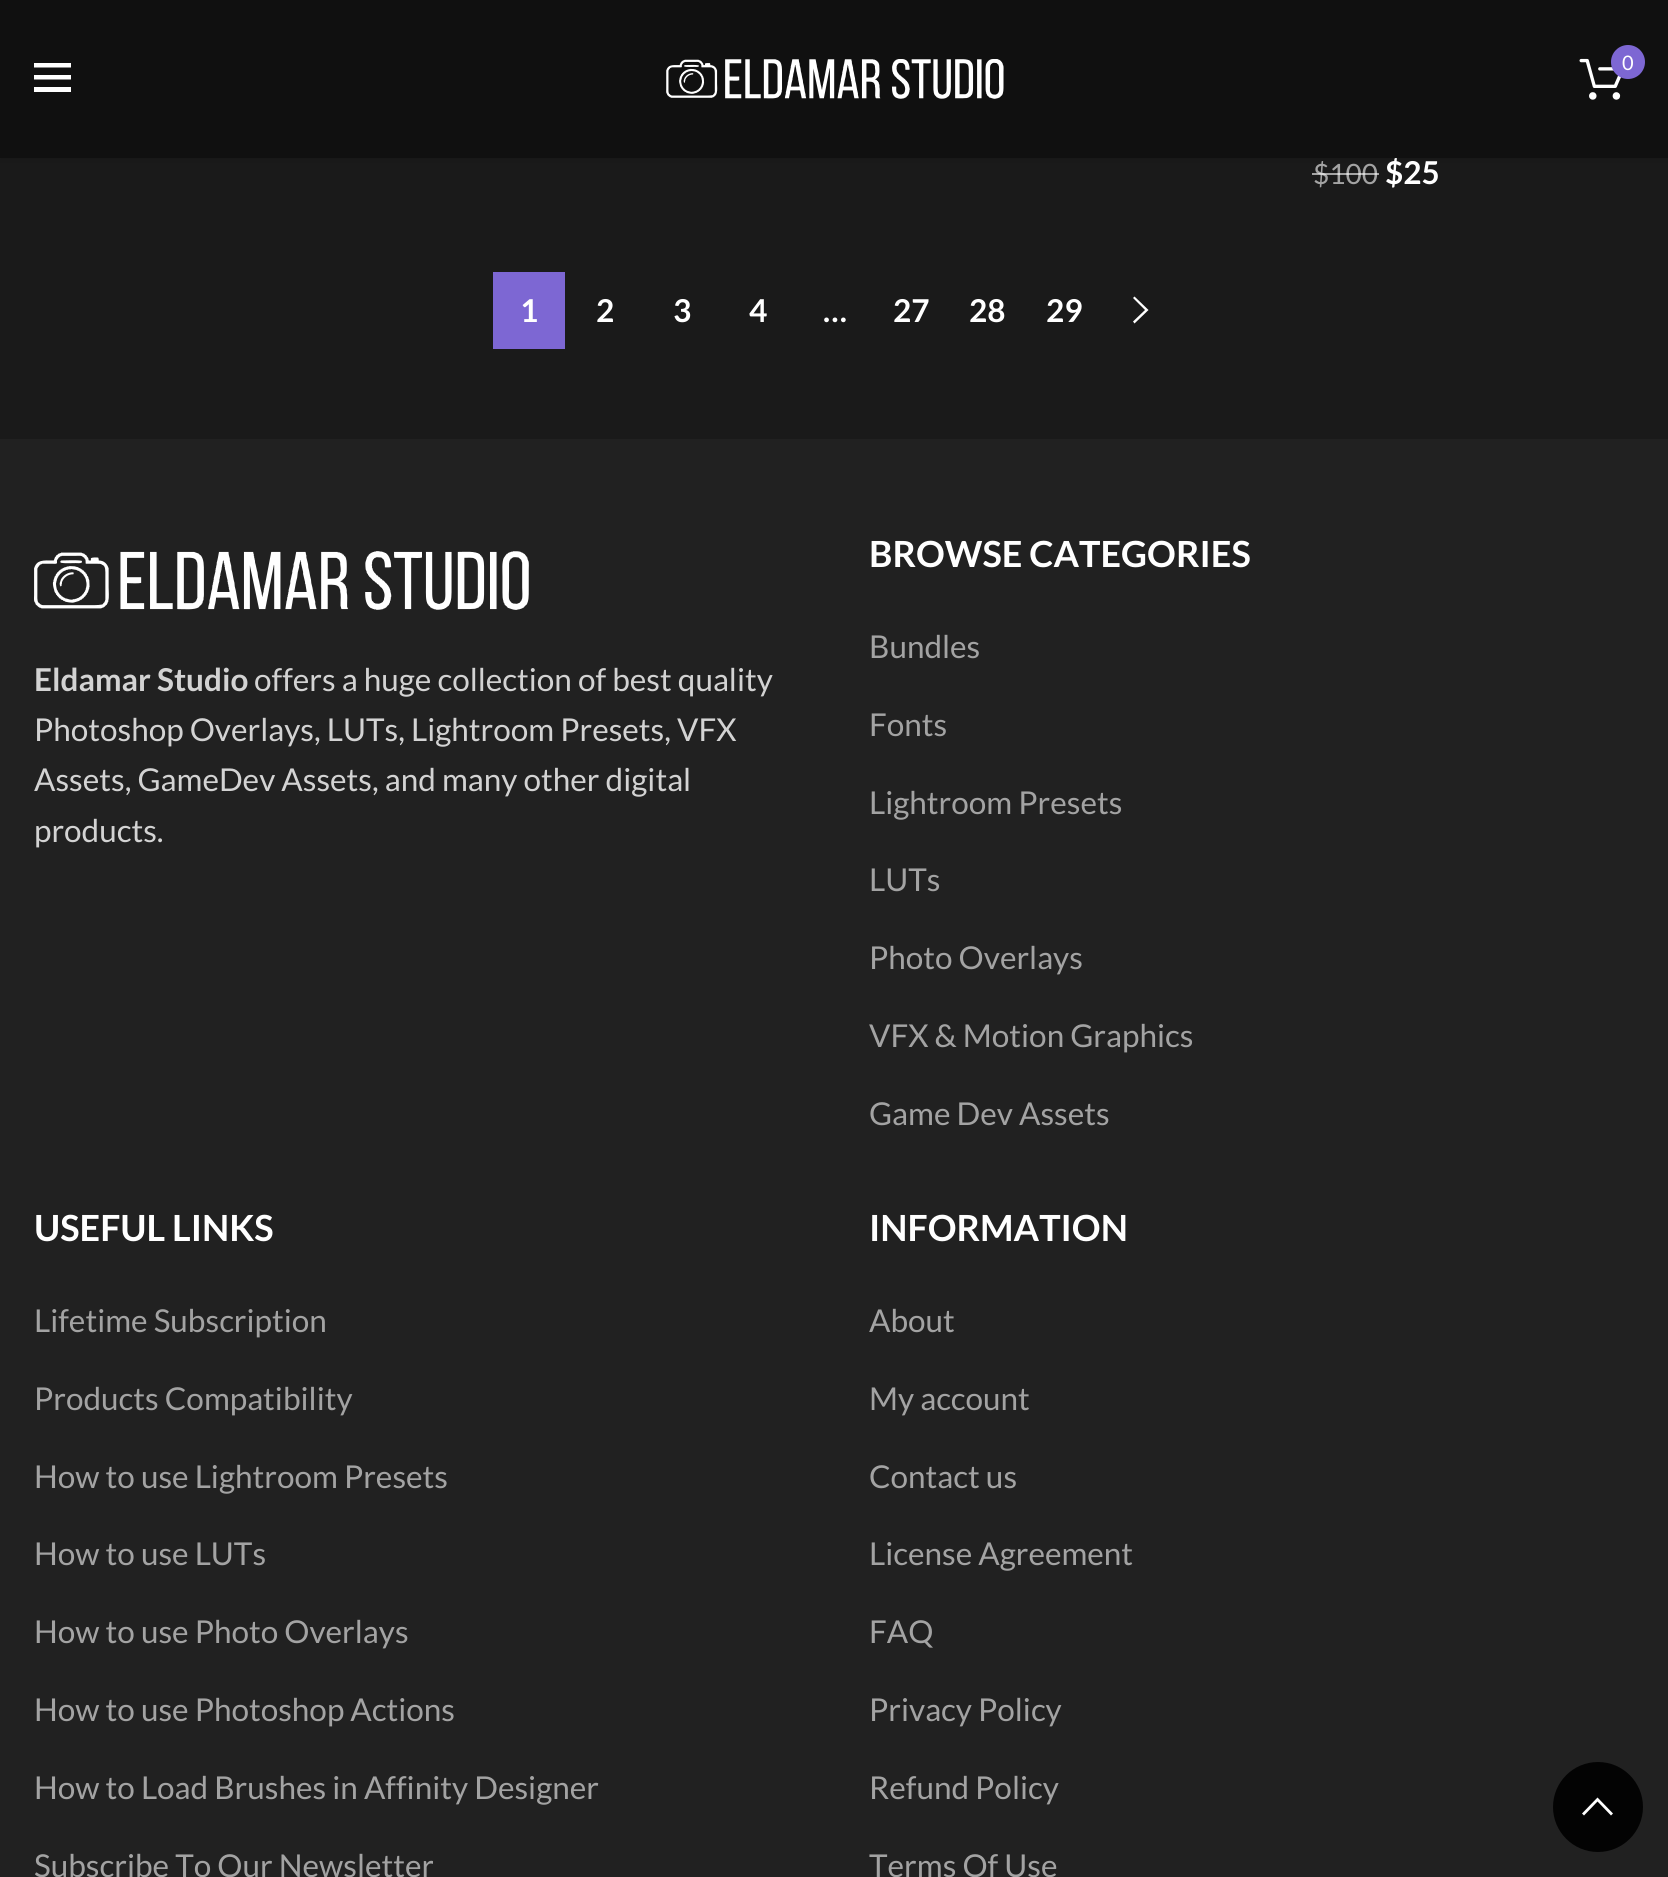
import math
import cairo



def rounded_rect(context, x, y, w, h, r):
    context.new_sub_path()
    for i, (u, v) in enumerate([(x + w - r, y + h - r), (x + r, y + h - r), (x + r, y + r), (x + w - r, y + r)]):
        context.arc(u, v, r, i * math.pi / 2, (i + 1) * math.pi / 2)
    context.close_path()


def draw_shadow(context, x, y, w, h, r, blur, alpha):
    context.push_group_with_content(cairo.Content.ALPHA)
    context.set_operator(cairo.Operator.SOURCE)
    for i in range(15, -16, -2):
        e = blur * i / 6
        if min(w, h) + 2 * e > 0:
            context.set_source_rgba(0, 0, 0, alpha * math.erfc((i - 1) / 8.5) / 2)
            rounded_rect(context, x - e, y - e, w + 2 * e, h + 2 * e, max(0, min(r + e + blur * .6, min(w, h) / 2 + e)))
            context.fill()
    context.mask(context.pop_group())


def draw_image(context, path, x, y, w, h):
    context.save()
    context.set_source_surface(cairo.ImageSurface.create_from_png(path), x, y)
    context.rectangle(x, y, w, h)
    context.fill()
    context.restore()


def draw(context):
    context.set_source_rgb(26 / 255, 26 / 255, 26 / 255)
    context.paint()
    context.set_source_rgb(0, 0, 0)
    draw_shadow(context, 0, 2, 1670, 158, 0, 3.5, 0.1)
    context.set_source_rgb(16 / 255, 16 / 255, 16 / 255)
    context.rectangle(0, 0, 1668, 158)
    context.fill()
    context.set_source_rgb(1, 1, 1)
    context.new_path()
    context.move_to(34, 63)
    context.line_to(71, 63)
    context.line_to(71, 67.5)
    context.line_to(34, 67.5)
    context.close_path()
    context.move_to(34, 75)
    context.line_to(71, 75)
    context.line_to(71, 79.5)
    context.line_to(34, 79.5)
    context.close_path()
    context.move_to(34, 87)
    context.line_to(71, 87)
    context.line_to(71, 92)
    context.line_to(34, 92)
    context.close_path()
    context.fill()
    draw_image(context, "images/1.png", 666, 59, 338, 40)
    draw_image(context, "images/2.png", 1579, 58, 42, 42)
    context.set_source_rgb(125 / 255, 103 / 255, 211 / 255)
    context.arc(1628, 62, 17, 0, 2 * math.pi)
    context.fill()
    context.rectangle(493, 272, 72, 77)
    context.fill()
    context.set_source_rgb(1, 1, 1)
    context.new_path()
    context.move_to(1134.5, 296.5)
    context.line_to(1148.5, 310)
    context.line_to(1134.5, 323.5)
    context.line_to(1133, 321.5)
    context.line_to(1145, 310)
    context.line_to(1133, 298)
    context.close_path()
    context.fill()
    context.set_source_rgb(33 / 255, 33 / 255, 33 / 255)
    context.rectangle(0, 439, 1668, 1438)
    context.fill()
    draw_image(context, "images/3.png", 34, 551, 495, 59)
    context.set_source_rgba(0, 0, 0, 0.9)
    context.arc(1598, 1807, 45, 0, 2 * math.pi)
    context.fill()
    context.set_source_rgb(1, 1, 1)
    context.new_path()
    context.move_to(1597.5, 1797.5)
    context.line_to(1613, 1813.5)
    context.line_to(1611, 1815.5)
    context.line_to(1597.5, 1801.5)
    context.line_to(1584, 1815.5)
    context.line_to(1582, 1813.5)
    context.close_path()
    context.fill()
    context.select_font_face("Lato")
    context.set_font_size(20)
    context.move_to(1622, 70)
    context.show_text("0")
    context.set_font_size(28)
    context.set_source_rgb(163 / 255, 163 / 255, 163 / 255)
    context.move_to(1313, 184)
    context.show_text("$100")
    context.set_source_rgba(1, 1, 1, 0.6)
    context.rectangle(1312, 173, 18, 2)
    context.fill()
    context.rectangle(1330, 173, 49, 2)
    context.fill()
    context.select_font_face("Lato", cairo.FontSlant.NORMAL, cairo.FontWeight.BOLD)
    context.set_font_size(31.5)
    context.set_source_rgb(1, 1, 1)
    context.move_to(1385, 184)
    context.show_text("$25")
    context.move_to(520, 322)
    context.show_text("1")
    context.move_to(596, 322)
    context.show_text("2")
    context.move_to(673, 322)
    context.show_text("3")
    context.move_to(749, 322)
    context.show_text("4")
    context.move_to(823, 322)
    context.show_text("…")
    context.move_to(893, 322)
    context.show_text("27")
    context.move_to(969, 322)
    context.show_text("28")
    context.move_to(1046, 322)
    context.show_text("29")
    context.set_source_rgb(211 / 255, 211 / 255, 211 / 255)
    context.move_to(34, 691)
    context.show_text("Eldamar Studio")
    context.select_font_face("Lato")
    context.move_to(254, 691)
    context.show_text("offers a huge collection of best quality")
    context.move_to(34, 741)
    context.show_text("Photoshop Overlays, LUTs, Lightroom Presets, VFX")
    context.move_to(34, 791)
    context.show_text("Assets, GameDev Assets, and many other digital")
    context.move_to(34, 842)
    context.show_text("products.")
    context.select_font_face("Lato", cairo.FontSlant.NORMAL, cairo.FontWeight.BOLD)
    context.set_font_size(36)
    context.set_source_rgb(1, 1, 1)
    context.move_to(869, 567)
    context.show_text("BROWSE CATEGORIES")
    context.select_font_face("Lato")
    context.set_font_size(31.5)
    context.set_source_rgb(163 / 255, 163 / 255, 163 / 255)
    context.move_to(869, 658)
    context.show_text("Bundles")
    context.move_to(869, 736)
    context.show_text("Fonts")
    context.move_to(869, 814)
    context.show_text("Lightroom Presets")
    context.move_to(869, 891)
    context.show_text("LUTs")
    context.move_to(869, 969)
    context.show_text("Photo Overlays")
    context.move_to(869, 1047)
    context.show_text("VFX & Motion Graphics")
    context.move_to(869, 1125)
    context.show_text("Game Dev Assets")
    context.select_font_face("Lato", cairo.FontSlant.NORMAL, cairo.FontWeight.BOLD)
    context.set_font_size(36)
    context.set_source_rgb(1, 1, 1)
    context.move_to(34, 1241)
    context.show_text("USEFUL LINKS")
    context.select_font_face("Lato")
    context.set_font_size(31.5)
    context.set_source_rgb(163 / 255, 163 / 255, 163 / 255)
    context.move_to(34, 1332)
    context.show_text("Lifetime Subscription")
    context.move_to(34, 1410)
    context.show_text("Products Compatibility")
    context.move_to(34, 1488)
    context.show_text("How to use Lightroom Presets")
    context.move_to(34, 1565)
    context.show_text("How to use LUTs")
    context.move_to(34, 1643)
    context.show_text("How to use Photo Overlays")
    context.move_to(34, 1721)
    context.show_text("How to use Photoshop Actions")
    context.move_to(34, 1799)
    context.show_text("How to Load Brushes in Affinity Designer")
    context.move_to(34, 1877)
    context.show_text("Subscribe To Our Newsletter")
    context.select_font_face("Lato", cairo.FontSlant.NORMAL, cairo.FontWeight.BOLD)
    context.set_font_size(36)
    context.set_source_rgb(1, 1, 1)
    context.move_to(869, 1241)
    context.show_text("INFORMATION")
    context.select_font_face("Lato")
    context.set_font_size(31.5)
    context.set_source_rgb(163 / 255, 163 / 255, 163 / 255)
    context.move_to(869, 1332)
    context.show_text("About")
    context.move_to(869, 1410)
    context.show_text("My account")
    context.move_to(869, 1488)
    context.show_text("Contact us")
    context.move_to(869, 1565)
    context.show_text("License Agreement")
    context.move_to(869, 1643)
    context.show_text("FAQ")
    context.move_to(869, 1721)
    context.show_text("Privacy Policy")
    context.move_to(869, 1799)
    context.show_text("Refund Policy")
    context.move_to(869, 1877)
    context.show_text("Terms Of Use")


surface = cairo.ImageSurface(cairo.Format.RGB24, 1668, 1877)
context = cairo.Context(surface)
options = cairo.FontOptions()
options.set_hint_metrics(cairo.HintMetrics.OFF)
options.set_hint_style(cairo.HintStyle.NONE)
context.set_font_options(options)
context.set_miter_limit(4)
draw(context)
surface.write_to_png("out.png")
